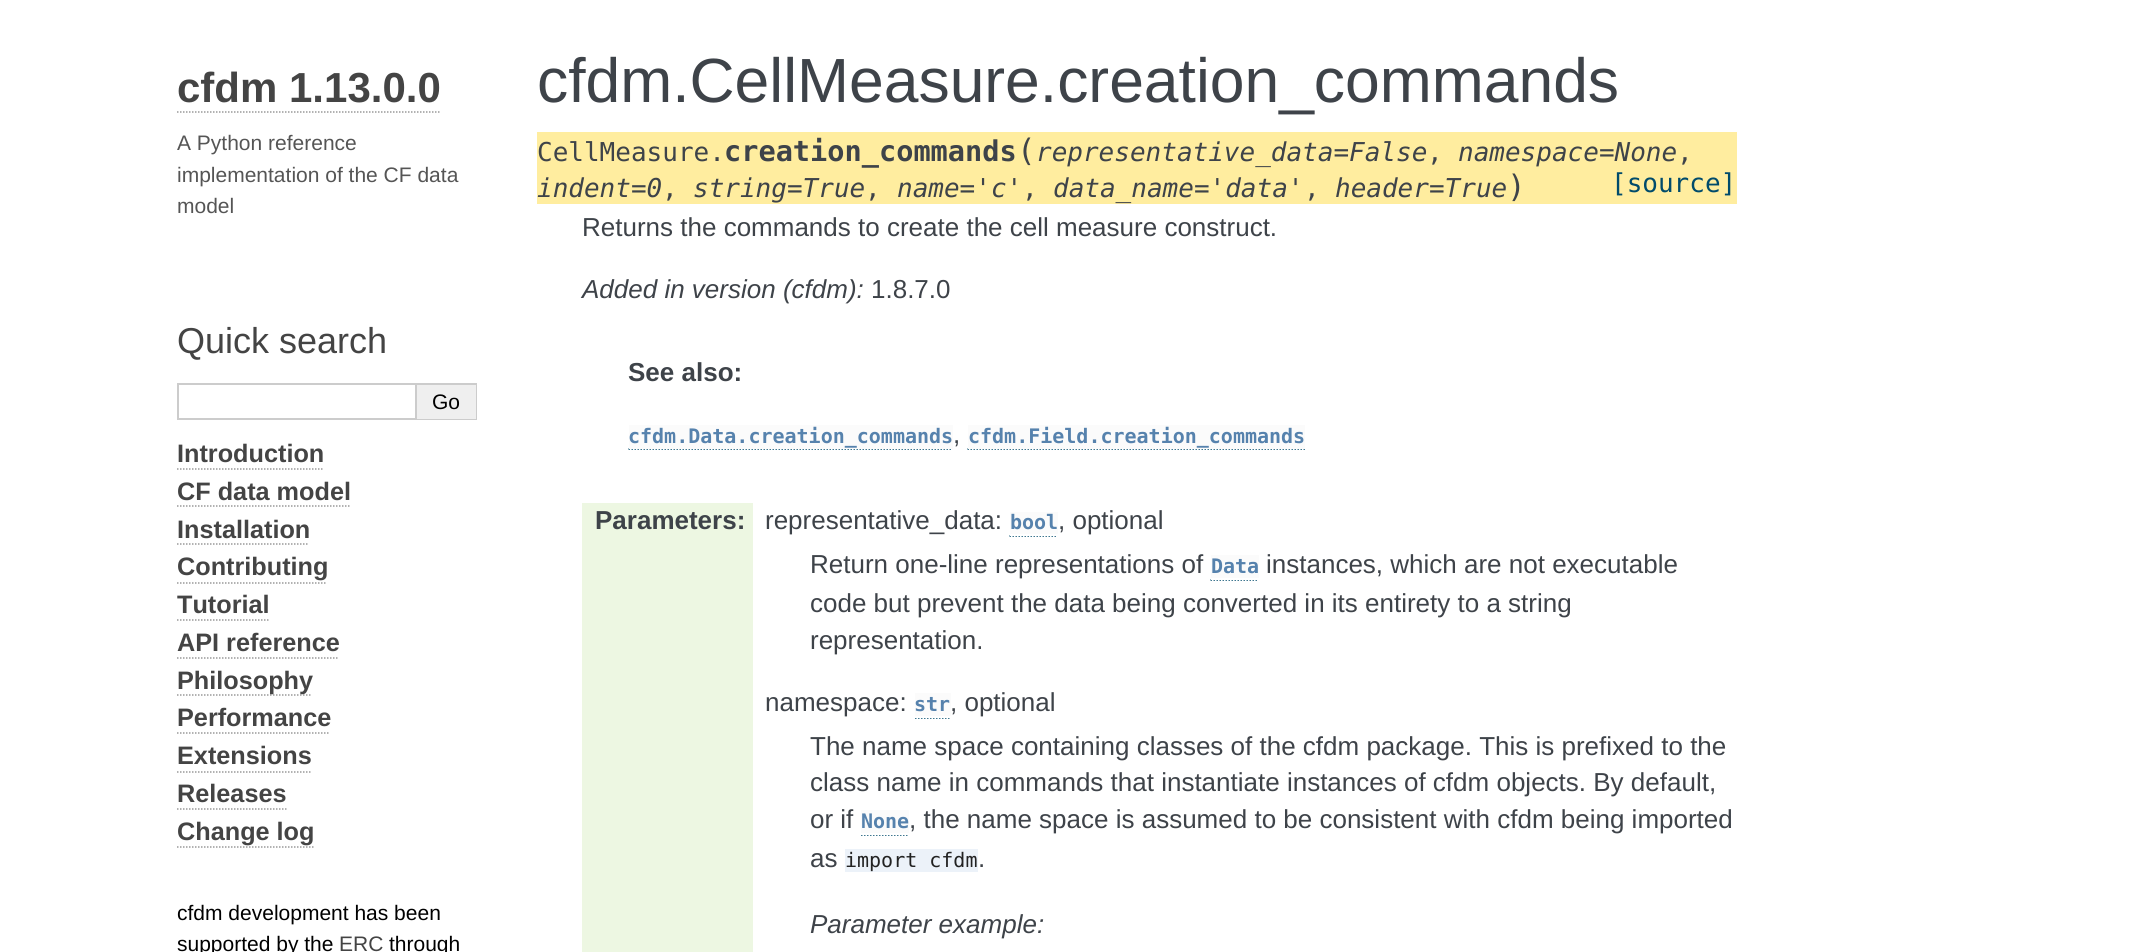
import math
import cairo



def draw(context):
    context.set_source_rgb(1, 1, 1)
    context.paint()
    context.new_path()
    context.move_to(177, 112)
    context.line_to(441, 112)
    context.set_source_rgb(153 / 255, 153 / 255, 153 / 255)
    context.set_line_width(1.5)
    context.set_dash([1.5, 1.5])
    context.stroke()
    context.rectangle(178, 384, 238, 35)
    context.set_source_rgb(204 / 255, 204 / 255, 204 / 255)
    context.set_line_width(2)
    context.set_dash([])
    context.stroke()
    context.set_source_rgb(239 / 255, 239 / 255, 239 / 255)
    context.rectangle(417, 385, 59, 34)
    context.fill()
    context.set_source_rgb(204 / 255, 204 / 255, 204 / 255)
    context.rectangle(417, 383, 60, 2)
    context.fill()
    context.rectangle(476, 383, 1, 37)
    context.fill()
    context.rectangle(417, 419, 60, 1)
    context.fill()
    context.new_path()
    context.move_to(177, 469)
    context.line_to(324, 469)
    context.set_source_rgb(153 / 255, 153 / 255, 153 / 255)
    context.set_line_width(1.5)
    context.set_dash([1.5, 1.5])
    context.stroke()
    context.new_path()
    context.move_to(177, 506)
    context.line_to(349.5, 506)
    context.stroke()
    context.new_path()
    context.move_to(177, 544)
    context.line_to(309, 544)
    context.stroke()
    context.new_path()
    context.move_to(177, 583)
    context.line_to(327, 583)
    context.stroke()
    context.new_path()
    context.move_to(177, 620)
    context.line_to(268.5, 620)
    context.stroke()
    context.new_path()
    context.move_to(177, 658)
    context.line_to(339, 658)
    context.stroke()
    context.new_path()
    context.move_to(177, 695)
    context.line_to(312, 695)
    context.stroke()
    context.new_path()
    context.move_to(177, 733)
    context.line_to(330, 733)
    context.stroke()
    context.new_path()
    context.move_to(177, 772)
    context.line_to(310.5, 772)
    context.stroke()
    context.new_path()
    context.move_to(177, 809)
    context.line_to(286.5, 809)
    context.stroke()
    context.new_path()
    context.move_to(177, 847)
    context.line_to(313.5, 847)
    context.stroke()
    context.set_source_rgb(1, 237 / 255, 159 / 255)
    context.rectangle(537, 132, 1200, 72)
    context.fill()
    context.new_path()
    context.move_to(628.5, 449)
    context.line_to(952.5, 449)
    context.set_source_rgb(0, 75 / 255, 107 / 255)
    context.stroke()
    context.set_source_rgb(251 / 255, 251 / 255, 251 / 255)
    context.rectangle(629, 425, 324, 24)
    context.fill()
    context.new_path()
    context.move_to(967.5, 449)
    context.line_to(1305, 449)
    context.set_source_rgb(0, 75 / 255, 107 / 255)
    context.stroke()
    context.set_source_rgb(251 / 255, 251 / 255, 251 / 255)
    context.rectangle(968, 425, 337, 24)
    context.fill()
    context.set_source_rgb(237 / 255, 247 / 255, 226 / 255)
    context.rectangle(582, 503, 171, 449)
    context.fill()
    context.new_path()
    context.move_to(1009.5, 536)
    context.line_to(1057.5, 536)
    context.set_source_rgb(0, 75 / 255, 107 / 255)
    context.stroke()
    context.set_source_rgb(251 / 255, 251 / 255, 251 / 255)
    context.rectangle(1010, 512, 48, 22)
    context.fill()
    context.set_source_rgb(1, 1, 1)
    context.rectangle(1010, 535, 48, 1)
    context.fill()
    context.new_path()
    context.move_to(1210.5, 580)
    context.line_to(1258.5, 580)
    context.set_source_rgb(0, 75 / 255, 107 / 255)
    context.stroke()
    context.set_source_rgb(251 / 255, 251 / 255, 251 / 255)
    context.rectangle(1211, 555, 48, 23)
    context.fill()
    context.set_source_rgb(1, 1, 1)
    context.rectangle(1211, 579, 48, 1)
    context.fill()
    context.new_path()
    context.move_to(915, 718)
    context.line_to(951, 718)
    context.set_source_rgb(0, 75 / 255, 107 / 255)
    context.stroke()
    context.set_source_rgb(251 / 255, 251 / 255, 251 / 255)
    context.rectangle(915, 693, 36, 23)
    context.fill()
    context.set_source_rgb(1, 1, 1)
    context.rectangle(915, 717, 36, 1)
    context.fill()
    context.new_path()
    context.move_to(861, 835)
    context.line_to(909, 835)
    context.set_source_rgb(0, 75 / 255, 107 / 255)
    context.stroke()
    context.set_source_rgb(251 / 255, 251 / 255, 251 / 255)
    context.rectangle(861, 810, 48, 23)
    context.fill()
    context.set_source_rgb(1, 1, 1)
    context.rectangle(861, 834, 48, 1)
    context.fill()
    context.set_source_rgb(236 / 255, 242 / 255, 249 / 255)
    context.rectangle(845, 849, 133, 23)
    context.fill()
    context.select_font_face("Liberation Sans", cairo.FontSlant.NORMAL, cairo.FontWeight.BOLD)
    context.set_font_size(42)
    context.set_source_rgb(68 / 255, 68 / 255, 68 / 255)
    context.move_to(177, 102)
    context.show_text("cfdm 1.13.0.0")
    context.select_font_face("Liberation Sans")
    context.set_font_size(21)
    context.set_source_rgb(85 / 255, 85 / 255, 85 / 255)
    context.move_to(177, 150)
    context.show_text("A Python reference")
    context.move_to(177, 182)
    context.show_text("implementation of the CF data")
    context.move_to(177, 213)
    context.show_text("model")
    context.set_font_size(36)
    context.set_source_rgb(68 / 255, 68 / 255, 68 / 255)
    context.move_to(177, 353)
    context.show_text("Quick search")
    context.set_font_size(21)
    context.set_source_rgb(0, 0, 0)
    context.move_to(432, 409)
    context.show_text("Go")
    context.select_font_face("Liberation Sans", cairo.FontSlant.NORMAL, cairo.FontWeight.BOLD)
    context.set_font_size(25.25)
    context.set_source_rgb(68 / 255, 68 / 255, 68 / 255)
    context.move_to(177, 462)
    context.show_text("Introduction")
    context.move_to(177, 500)
    context.show_text("CF data model")
    context.move_to(177, 538)
    context.show_text("Installation")
    context.move_to(177, 575)
    context.show_text("Contributing")
    context.move_to(177, 613)
    context.show_text("Tutorial")
    context.move_to(177, 651)
    context.show_text("API reference")
    context.move_to(177, 689)
    context.show_text("Philosophy")
    context.move_to(177, 726)
    context.show_text("Performance")
    context.move_to(177, 764)
    context.show_text("Extensions")
    context.move_to(177, 802)
    context.show_text("Releases")
    context.move_to(177, 840)
    context.show_text("Change log")
    context.select_font_face("Liberation Sans")
    context.set_font_size(21)
    context.set_source_rgb(0, 0, 0)
    context.move_to(177, 920)
    context.show_text("cfdm development has been")
    context.move_to(177, 951)
    context.show_text("supported by the")
    context.set_source_rgb(68 / 255, 68 / 255, 68 / 255)
    context.move_to(339, 951)
    context.show_text("ERC")
    context.set_source_rgb(0, 0, 0)
    context.move_to(389, 951)
    context.show_text("through")
    context.set_font_size(62.4)
    context.set_source_rgb(62 / 255, 67 / 255, 73 / 255)
    context.move_to(537, 102)
    context.show_text("cfdm.CellMeasure.creation_commands")
    context.select_font_face("DejaVu Sans Mono")
    context.set_font_size(26)
    context.move_to(537, 161)
    context.show_text("CellMeasure.")
    context.select_font_face("DejaVu Sans Mono", cairo.FontSlant.NORMAL, cairo.FontWeight.BOLD)
    context.set_font_size(28.6)
    context.move_to(724, 161)
    context.show_text("creation_commands")
    context.select_font_face("DejaVu Sans Mono")
    context.set_font_size(31)
    context.move_to(1017, 161)
    context.show_text("(")
    context.select_font_face("DejaVu Sans Mono", cairo.FontSlant.ITALIC)
    context.set_font_size(26)
    context.move_to(1036, 161)
    context.show_text("representative_data=False")
    context.select_font_face("DejaVu Sans Mono")
    context.move_to(1427, 161)
    context.show_text(",")
    context.select_font_face("DejaVu Sans Mono", cairo.FontSlant.ITALIC)
    context.move_to(1458, 161)
    context.show_text("namespace=None")
    context.select_font_face("DejaVu Sans Mono")
    context.move_to(1677, 161)
    context.show_text(",")
    context.select_font_face("DejaVu Sans Mono", cairo.FontSlant.ITALIC)
    context.move_to(537, 197)
    context.show_text("indent=0")
    context.select_font_face("DejaVu Sans Mono")
    context.move_to(662, 197)
    context.show_text(",")
    context.select_font_face("DejaVu Sans Mono", cairo.FontSlant.ITALIC)
    context.move_to(693, 197)
    context.show_text("string=True")
    context.select_font_face("DejaVu Sans Mono")
    context.move_to(865, 197)
    context.show_text(",")
    context.select_font_face("DejaVu Sans Mono", cairo.FontSlant.ITALIC)
    context.move_to(897, 197)
    context.show_text("name='c'")
    context.select_font_face("DejaVu Sans Mono")
    context.move_to(1022, 197)
    context.show_text(",")
    context.select_font_face("DejaVu Sans Mono", cairo.FontSlant.ITALIC)
    context.move_to(1053, 197)
    context.show_text("data_name='data'")
    context.select_font_face("DejaVu Sans Mono")
    context.move_to(1304, 197)
    context.show_text(",")
    context.select_font_face("DejaVu Sans Mono", cairo.FontSlant.ITALIC)
    context.move_to(1335, 197)
    context.show_text("header=True")
    context.select_font_face("DejaVu Sans Mono")
    context.set_font_size(31)
    context.move_to(1507, 197)
    context.show_text(")")
    context.set_font_size(26)
    context.set_source_rgb(0, 75 / 255, 107 / 255)
    context.move_to(1611, 192)
    context.show_text("[source]")
    context.select_font_face("Liberation Sans")
    context.set_source_rgb(62 / 255, 67 / 255, 73 / 255)
    context.move_to(582, 236)
    context.show_text("Returns the commands to create the cell measure construct.")
    context.select_font_face("Liberation Sans", cairo.FontSlant.ITALIC)
    context.move_to(582, 298)
    context.show_text("Added in version (cfdm):")
    context.select_font_face("Liberation Sans")
    context.move_to(871, 298)
    context.show_text("1.8.7.0")
    context.select_font_face("Liberation Sans", cairo.FontSlant.NORMAL, cairo.FontWeight.BOLD)
    context.move_to(628, 381)
    context.show_text("See also:")
    context.select_font_face("DejaVu Sans Mono", cairo.FontSlant.NORMAL, cairo.FontWeight.BOLD)
    context.set_font_size(20)
    context.set_source_rgb(86 / 255, 130 / 255, 173 / 255)
    context.move_to(628, 443)
    context.show_text("cfdm.Data.creation_commands")
    context.select_font_face("Liberation Sans")
    context.set_font_size(26)
    context.set_source_rgb(62 / 255, 67 / 255, 73 / 255)
    context.move_to(953, 443)
    context.show_text(",")
    context.select_font_face("DejaVu Sans Mono", cairo.FontSlant.NORMAL, cairo.FontWeight.BOLD)
    context.set_font_size(20)
    context.set_source_rgb(86 / 255, 130 / 255, 173 / 255)
    context.move_to(968, 443)
    context.show_text("cfdm.Field.creation_commands")
    context.select_font_face("Liberation Sans", cairo.FontSlant.NORMAL, cairo.FontWeight.BOLD)
    context.set_font_size(26)
    context.set_source_rgb(62 / 255, 67 / 255, 73 / 255)
    context.move_to(595, 529)
    context.show_text("Parameters:")
    context.select_font_face("Liberation Sans")
    context.move_to(765, 529)
    context.show_text("representative_data:")
    context.select_font_face("DejaVu Sans Mono", cairo.FontSlant.NORMAL, cairo.FontWeight.BOLD)
    context.set_font_size(20)
    context.set_source_rgb(86 / 255, 130 / 255, 173 / 255)
    context.move_to(1010, 529)
    context.show_text("bool")
    context.select_font_face("Liberation Sans")
    context.set_font_size(26)
    context.set_source_rgb(62 / 255, 67 / 255, 73 / 255)
    context.move_to(1058, 529)
    context.show_text(", optional")
    context.move_to(810, 573)
    context.show_text("Return one-line representations of")
    context.select_font_face("DejaVu Sans Mono", cairo.FontSlant.NORMAL, cairo.FontWeight.BOLD)
    context.set_font_size(20)
    context.set_source_rgb(86 / 255, 130 / 255, 173 / 255)
    context.move_to(1211, 573)
    context.show_text("Data")
    context.select_font_face("Liberation Sans")
    context.set_font_size(26)
    context.set_source_rgb(62 / 255, 67 / 255, 73 / 255)
    context.move_to(1266, 573)
    context.show_text("instances, which are not executable")
    context.move_to(810, 612)
    context.show_text("code but prevent the data being converted in its entirety to a string")
    context.move_to(810, 649)
    context.show_text("representation.")
    context.move_to(765, 711)
    context.show_text("namespace:")
    context.select_font_face("DejaVu Sans Mono", cairo.FontSlant.NORMAL, cairo.FontWeight.BOLD)
    context.set_font_size(20)
    context.set_source_rgb(86 / 255, 130 / 255, 173 / 255)
    context.move_to(914, 711)
    context.show_text("str")
    context.select_font_face("Liberation Sans")
    context.set_font_size(26)
    context.set_source_rgb(62 / 255, 67 / 255, 73 / 255)
    context.move_to(950, 711)
    context.show_text(", optional")
    context.move_to(810, 755)
    context.show_text("The name space containing classes of the cfdm package. This is prefixed to the")
    context.move_to(810, 791)
    context.show_text("class name in commands that instantiate instances of cfdm objects. By default,")
    context.move_to(810, 828)
    context.show_text("or if")
    context.select_font_face("DejaVu Sans Mono", cairo.FontSlant.NORMAL, cairo.FontWeight.BOLD)
    context.set_font_size(20)
    context.set_source_rgb(86 / 255, 130 / 255, 173 / 255)
    context.move_to(861, 828)
    context.show_text("None")
    context.select_font_face("Liberation Sans")
    context.set_font_size(26)
    context.set_source_rgb(62 / 255, 67 / 255, 73 / 255)
    context.move_to(909, 828)
    context.show_text(", the name space is assumed to be consistent with cfdm being imported")
    context.move_to(810, 867)
    context.show_text("as")
    context.select_font_face("DejaVu Sans Mono")
    context.set_font_size(20)
    context.set_source_rgb(34 / 255, 34 / 255, 34 / 255)
    context.move_to(845, 867)
    context.show_text("import cfdm")
    context.select_font_face("Liberation Sans")
    context.set_font_size(26)
    context.set_source_rgb(62 / 255, 67 / 255, 73 / 255)
    context.move_to(978, 867)
    context.show_text(".")
    context.select_font_face("Liberation Sans", cairo.FontSlant.ITALIC)
    context.move_to(810, 933)
    context.show_text("Parameter example:")


surface = cairo.ImageSurface(cairo.Format.RGB24, 2155, 952)
context = cairo.Context(surface)
options = cairo.FontOptions()
options.set_hint_metrics(cairo.HintMetrics.OFF)
options.set_hint_style(cairo.HintStyle.NONE)
context.set_font_options(options)
context.set_miter_limit(4)
draw(context)
surface.write_to_png("out.png")
